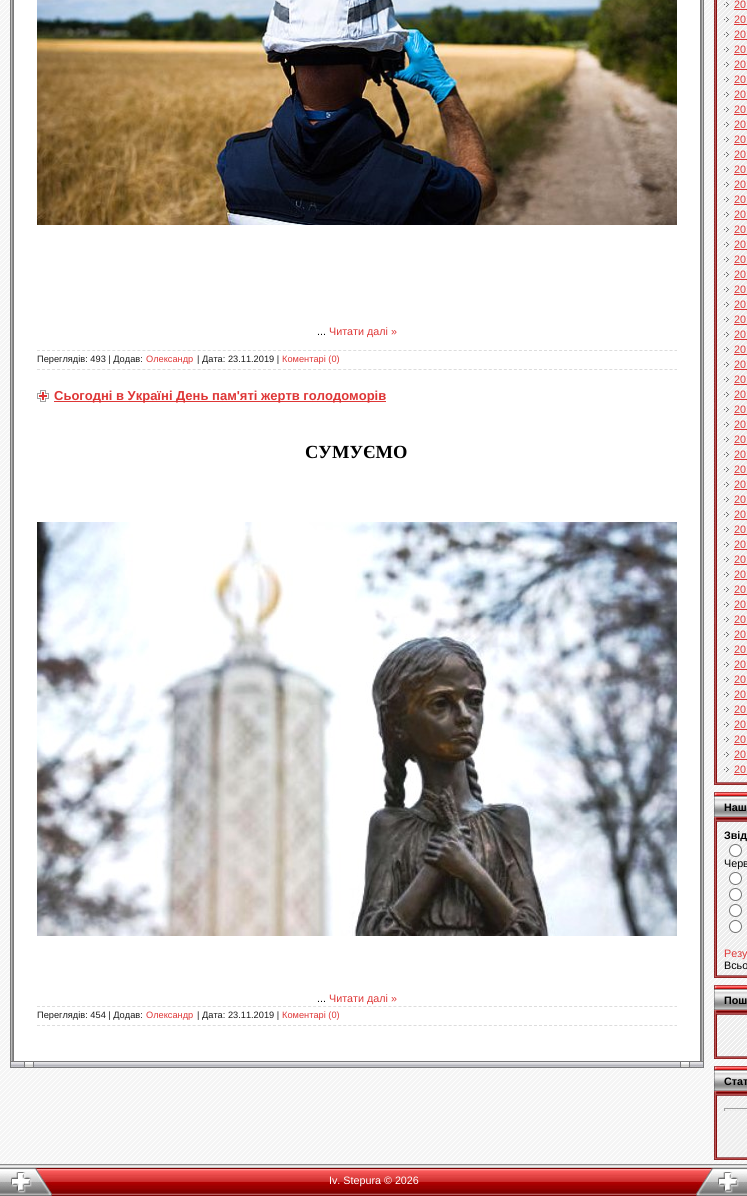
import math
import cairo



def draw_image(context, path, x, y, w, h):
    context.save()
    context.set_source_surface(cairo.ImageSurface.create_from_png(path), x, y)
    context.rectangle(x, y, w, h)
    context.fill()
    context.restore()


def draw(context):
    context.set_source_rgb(1, 1, 1)
    context.paint()
    draw_image(context, "images/1.png", 0, 0, 747, 1164)
    draw_image(context, "images/2.png", 10, 0, 24, 1041)
    context.set_source_rgb(1, 1, 1)
    context.rectangle(34, 0, 646, 1041)
    context.fill()
    draw_image(context, "images/3.png", 37, 0, 640, 225)
    context.new_path()
    context.move_to(37, 350.5)
    context.line_to(677, 350.5)
    context.set_source_rgb(221 / 255, 221 / 255, 221 / 255)
    context.set_line_width(1)
    context.set_dash([3, 2.02])
    context.stroke()
    context.new_path()
    context.move_to(37, 369.5)
    context.line_to(677, 369.5)
    context.stroke()
    draw_image(context, "images/4.png", 37, 390, 12, 12)
    context.set_source_rgb(222 / 255, 54 / 255, 54 / 255)
    context.rectangle(54, 401, 332, 1)
    context.fill()
    draw_image(context, "images/5.png", 37, 522, 640, 414)
    context.new_path()
    context.move_to(37, 1006.5)
    context.line_to(677, 1006.5)
    context.set_source_rgb(221 / 255, 221 / 255, 221 / 255)
    context.stroke()
    context.new_path()
    context.move_to(37, 1025.5)
    context.line_to(677, 1025.5)
    context.stroke()
    draw_image(context, "images/6.png", 680, 0, 24, 1041)
    draw_image(context, "images/7.png", 10, 1041, 24, 27)
    draw_image(context, "images/8.png", 34, 1041, 646, 27)
    draw_image(context, "images/9.png", 680, 1041, 24, 27)
    draw_image(context, "images/10.png", 714, 0, 33, 782)
    draw_image(context, "images/11.png", 724, 2, 5, 5)
    context.set_source_rgb(222 / 255, 54 / 255, 54 / 255)
    context.rectangle(734, 9, 13, 1)
    context.fill()
    draw_image(context, "images/11.png", 724, 17, 5, 5)
    context.rectangle(734, 24, 13, 1)
    context.fill()
    draw_image(context, "images/11.png", 724, 32, 5, 5)
    context.rectangle(734, 39, 13, 1)
    context.fill()
    draw_image(context, "images/11.png", 724, 47, 5, 5)
    context.rectangle(734, 54, 13, 1)
    context.fill()
    draw_image(context, "images/11.png", 724, 62, 5, 5)
    context.rectangle(734, 69, 13, 1)
    context.fill()
    draw_image(context, "images/11.png", 724, 77, 5, 5)
    context.rectangle(734, 84, 13, 1)
    context.fill()
    draw_image(context, "images/11.png", 724, 92, 5, 5)
    context.rectangle(734, 99, 13, 1)
    context.fill()
    draw_image(context, "images/11.png", 724, 107, 5, 5)
    context.rectangle(734, 114, 13, 1)
    context.fill()
    draw_image(context, "images/11.png", 724, 122, 5, 5)
    context.rectangle(734, 129, 13, 1)
    context.fill()
    draw_image(context, "images/11.png", 724, 137, 5, 5)
    context.rectangle(734, 144, 13, 1)
    context.fill()
    draw_image(context, "images/11.png", 724, 152, 5, 5)
    context.rectangle(734, 159, 13, 1)
    context.fill()
    draw_image(context, "images/11.png", 724, 167, 5, 5)
    context.rectangle(734, 174, 13, 1)
    context.fill()
    draw_image(context, "images/11.png", 724, 182, 5, 5)
    context.rectangle(734, 189, 13, 1)
    context.fill()
    draw_image(context, "images/11.png", 724, 197, 5, 5)
    context.rectangle(734, 204, 13, 1)
    context.fill()
    draw_image(context, "images/11.png", 724, 212, 5, 5)
    context.rectangle(734, 219, 13, 1)
    context.fill()
    draw_image(context, "images/11.png", 724, 227, 5, 5)
    context.rectangle(734, 234, 13, 1)
    context.fill()
    draw_image(context, "images/11.png", 724, 242, 5, 5)
    context.rectangle(734, 249, 13, 1)
    context.fill()
    draw_image(context, "images/11.png", 724, 257, 5, 5)
    context.rectangle(734, 264, 13, 1)
    context.fill()
    draw_image(context, "images/11.png", 724, 272, 5, 5)
    context.rectangle(734, 279, 13, 1)
    context.fill()
    draw_image(context, "images/11.png", 724, 287, 5, 5)
    context.rectangle(734, 294, 13, 1)
    context.fill()
    draw_image(context, "images/11.png", 724, 302, 5, 5)
    context.rectangle(734, 309, 13, 1)
    context.fill()
    draw_image(context, "images/11.png", 724, 317, 5, 5)
    context.rectangle(734, 324, 13, 1)
    context.fill()
    draw_image(context, "images/11.png", 724, 332, 5, 5)
    context.rectangle(734, 339, 13, 1)
    context.fill()
    draw_image(context, "images/11.png", 724, 347, 5, 5)
    context.rectangle(734, 354, 13, 1)
    context.fill()
    draw_image(context, "images/11.png", 724, 362, 5, 5)
    context.rectangle(734, 369, 13, 1)
    context.fill()
    draw_image(context, "images/11.png", 724, 377, 5, 5)
    context.rectangle(734, 384, 13, 1)
    context.fill()
    draw_image(context, "images/11.png", 724, 392, 5, 5)
    context.rectangle(734, 399, 13, 1)
    context.fill()
    draw_image(context, "images/11.png", 724, 407, 5, 5)
    context.rectangle(734, 414, 13, 1)
    context.fill()
    draw_image(context, "images/11.png", 724, 422, 5, 5)
    context.rectangle(734, 429, 13, 1)
    context.fill()
    draw_image(context, "images/11.png", 724, 437, 5, 5)
    context.rectangle(734, 444, 13, 1)
    context.fill()
    draw_image(context, "images/11.png", 724, 452, 5, 5)
    context.rectangle(734, 459, 13, 1)
    context.fill()
    draw_image(context, "images/11.png", 724, 467, 5, 5)
    context.rectangle(734, 474, 13, 1)
    context.fill()
    draw_image(context, "images/11.png", 724, 482, 5, 5)
    context.rectangle(734, 489, 13, 1)
    context.fill()
    draw_image(context, "images/11.png", 724, 497, 5, 5)
    context.rectangle(734, 504, 13, 1)
    context.fill()
    draw_image(context, "images/11.png", 724, 512, 5, 5)
    context.rectangle(734, 519, 13, 1)
    context.fill()
    draw_image(context, "images/11.png", 724, 527, 5, 5)
    context.rectangle(734, 534, 13, 1)
    context.fill()
    draw_image(context, "images/11.png", 724, 542, 5, 5)
    context.rectangle(734, 549, 13, 1)
    context.fill()
    draw_image(context, "images/11.png", 724, 557, 5, 5)
    context.rectangle(734, 564, 13, 1)
    context.fill()
    draw_image(context, "images/11.png", 724, 572, 5, 5)
    context.rectangle(734, 579, 13, 1)
    context.fill()
    draw_image(context, "images/11.png", 724, 587, 5, 5)
    context.rectangle(734, 594, 13, 1)
    context.fill()
    draw_image(context, "images/11.png", 724, 602, 5, 5)
    context.rectangle(734, 609, 13, 1)
    context.fill()
    draw_image(context, "images/11.png", 724, 617, 5, 5)
    context.rectangle(734, 624, 13, 1)
    context.fill()
    draw_image(context, "images/11.png", 724, 632, 5, 5)
    context.rectangle(734, 639, 13, 1)
    context.fill()
    draw_image(context, "images/11.png", 724, 647, 5, 5)
    context.rectangle(734, 654, 13, 1)
    context.fill()
    draw_image(context, "images/11.png", 724, 662, 5, 5)
    context.rectangle(734, 669, 13, 1)
    context.fill()
    draw_image(context, "images/11.png", 724, 677, 5, 5)
    context.rectangle(734, 684, 13, 1)
    context.fill()
    draw_image(context, "images/11.png", 724, 692, 5, 5)
    context.rectangle(734, 699, 13, 1)
    context.fill()
    draw_image(context, "images/11.png", 724, 707, 5, 5)
    context.rectangle(734, 714, 13, 1)
    context.fill()
    draw_image(context, "images/11.png", 724, 722, 5, 5)
    context.rectangle(734, 729, 13, 1)
    context.fill()
    draw_image(context, "images/11.png", 724, 737, 5, 5)
    context.rectangle(734, 744, 13, 1)
    context.fill()
    draw_image(context, "images/11.png", 724, 752, 5, 5)
    context.rectangle(734, 759, 13, 1)
    context.fill()
    draw_image(context, "images/11.png", 724, 767, 5, 5)
    context.rectangle(734, 774, 13, 1)
    context.fill()
    draw_image(context, "images/12.png", 714, 782, 33, 3)
    draw_image(context, "images/13.png", 714, 792, 33, 30)
    draw_image(context, "images/14.png", 714, 822, 33, 153)
    context.set_source_rgb(1, 1, 1)
    context.arc(735.5, 850.5, 6, 0, 2 * math.pi)
    context.fill_preserve()
    context.set_source_rgb(118 / 255, 118 / 255, 118 / 255)
    context.set_dash([])
    context.stroke()
    context.set_source_rgb(1, 1, 1)
    context.arc(735.5, 878.5, 6, 0, 2 * math.pi)
    context.fill_preserve()
    context.set_source_rgb(118 / 255, 118 / 255, 118 / 255)
    context.stroke()
    context.set_source_rgb(1, 1, 1)
    context.arc(735.5, 894.5, 6, 0, 2 * math.pi)
    context.fill_preserve()
    context.set_source_rgb(118 / 255, 118 / 255, 118 / 255)
    context.stroke()
    context.set_source_rgb(1, 1, 1)
    context.arc(735.5, 910.5, 6, 0, 2 * math.pi)
    context.fill_preserve()
    context.set_source_rgb(118 / 255, 118 / 255, 118 / 255)
    context.stroke()
    context.set_source_rgb(1, 1, 1)
    context.arc(735.5, 926.5, 6, 0, 2 * math.pi)
    context.fill_preserve()
    context.set_source_rgb(118 / 255, 118 / 255, 118 / 255)
    context.stroke()
    draw_image(context, "images/12.png", 714, 975, 33, 3)
    draw_image(context, "images/13.png", 714, 985, 33, 30)
    draw_image(context, "images/15.png", 714, 1015, 33, 41)
    draw_image(context, "images/12.png", 714, 1056, 33, 3)
    draw_image(context, "images/13.png", 714, 1066, 33, 30)
    draw_image(context, "images/16.png", 714, 1096, 33, 61)
    context.set_source_rgb(159 / 255, 159 / 255, 159 / 255)
    context.rectangle(724, 1108, 23, 1)
    context.fill()
    context.set_source_rgb(238 / 255, 238 / 255, 238 / 255)
    context.rectangle(724, 1110, 23, 1)
    context.fill()
    context.set_source_rgb(159 / 255, 159 / 255, 159 / 255)
    context.rectangle(724, 1108, 1, 3)
    context.fill()
    draw_image(context, "images/12.png", 714, 1157, 33, 3)
    draw_image(context, "images/17.png", 52, 1164, 644, 32)
    draw_image(context, "images/18.png", 0, 1164, 52, 32)
    draw_image(context, "images/19.png", 696, 1164, 51, 32)
    context.select_font_face("Liberation Sans")
    context.set_font_size(10.75)
    context.set_source_rgb(0, 0, 0)
    context.move_to(317, 335)
    context.show_text("...")
    context.set_source_rgb(222 / 255, 54 / 255, 54 / 255)
    context.move_to(329, 335)
    context.show_text("Читати далі »")
    context.set_font_size(9.25)
    context.set_source_rgb(26 / 255, 26 / 255, 26 / 255)
    context.move_to(37, 362)
    context.show_text("Переглядів: 493 | Додав:")
    context.set_source_rgb(222 / 255, 54 / 255, 54 / 255)
    context.move_to(146, 362)
    context.show_text("Олександр")
    context.set_source_rgb(26 / 255, 26 / 255, 26 / 255)
    context.move_to(197, 362)
    context.show_text("| Дата: 23.11.2019 |")
    context.set_source_rgb(222 / 255, 54 / 255, 54 / 255)
    context.move_to(282, 362)
    context.show_text("Коментарі (0)")
    context.select_font_face("Liberation Sans", cairo.FontSlant.NORMAL, cairo.FontWeight.BOLD)
    context.set_font_size(13)
    context.move_to(54, 400)
    context.show_text("Сьогодні в Україні День пам'яті жертв голодоморів")
    context.select_font_face("Liberation Serif", cairo.FontSlant.NORMAL, cairo.FontWeight.BOLD)
    context.set_font_size(18.5)
    context.set_source_rgb(0, 0, 0)
    context.move_to(305, 458)
    context.show_text("СУМУЄМО")
    context.select_font_face("Liberation Sans")
    context.set_font_size(10.75)
    context.move_to(317, 1002)
    context.show_text("...")
    context.set_source_rgb(222 / 255, 54 / 255, 54 / 255)
    context.move_to(329, 1002)
    context.show_text("Читати далі »")
    context.set_font_size(9.25)
    context.set_source_rgb(26 / 255, 26 / 255, 26 / 255)
    context.move_to(37, 1018)
    context.show_text("Переглядів: 454 | Додав:")
    context.set_source_rgb(222 / 255, 54 / 255, 54 / 255)
    context.move_to(146, 1018)
    context.show_text("Олександр")
    context.set_source_rgb(26 / 255, 26 / 255, 26 / 255)
    context.move_to(197, 1018)
    context.show_text("| Дата: 23.11.2019 |")
    context.set_source_rgb(222 / 255, 54 / 255, 54 / 255)
    context.move_to(282, 1018)
    context.show_text("Коментарі (0)")
    context.set_font_size(10.75)
    context.move_to(734, 8)
    context.show_text("20")
    context.move_to(734, 23)
    context.show_text("20")
    context.move_to(734, 38)
    context.show_text("20")
    context.move_to(734, 53)
    context.show_text("20")
    context.move_to(734, 68)
    context.show_text("20")
    context.move_to(734, 83)
    context.show_text("20")
    context.move_to(734, 98)
    context.show_text("20")
    context.move_to(734, 113)
    context.show_text("20")
    context.move_to(734, 128)
    context.show_text("20")
    context.move_to(734, 143)
    context.show_text("20")
    context.move_to(734, 158)
    context.show_text("20")
    context.move_to(734, 173)
    context.show_text("20")
    context.move_to(734, 188)
    context.show_text("20")
    context.move_to(734, 203)
    context.show_text("20")
    context.move_to(734, 218)
    context.show_text("20")
    context.move_to(734, 233)
    context.show_text("20")
    context.move_to(734, 248)
    context.show_text("20")
    context.move_to(734, 263)
    context.show_text("20")
    context.move_to(734, 278)
    context.show_text("20")
    context.move_to(734, 293)
    context.show_text("20")
    context.move_to(734, 308)
    context.show_text("20")
    context.move_to(734, 323)
    context.show_text("20")
    context.move_to(734, 338)
    context.show_text("20")
    context.move_to(734, 353)
    context.show_text("20")
    context.move_to(734, 368)
    context.show_text("20")
    context.move_to(734, 383)
    context.show_text("20")
    context.move_to(734, 398)
    context.show_text("20")
    context.move_to(734, 413)
    context.show_text("20")
    context.move_to(734, 428)
    context.show_text("20")
    context.move_to(734, 443)
    context.show_text("20")
    context.move_to(734, 458)
    context.show_text("20")
    context.move_to(734, 473)
    context.show_text("20")
    context.move_to(734, 488)
    context.show_text("20")
    context.move_to(734, 503)
    context.show_text("20")
    context.move_to(734, 518)
    context.show_text("20")
    context.move_to(734, 533)
    context.show_text("20")
    context.move_to(734, 548)
    context.show_text("20")
    context.move_to(734, 563)
    context.show_text("20")
    context.move_to(734, 578)
    context.show_text("20")
    context.move_to(734, 593)
    context.show_text("20")
    context.move_to(734, 608)
    context.show_text("20")
    context.move_to(734, 623)
    context.show_text("20")
    context.move_to(734, 638)
    context.show_text("20")
    context.move_to(734, 653)
    context.show_text("20")
    context.move_to(734, 668)
    context.show_text("20")
    context.move_to(734, 683)
    context.show_text("20")
    context.move_to(734, 698)
    context.show_text("20")
    context.move_to(734, 713)
    context.show_text("20")
    context.move_to(734, 728)
    context.show_text("20")
    context.move_to(734, 743)
    context.show_text("20")
    context.move_to(734, 758)
    context.show_text("20")
    context.move_to(734, 773)
    context.show_text("20")
    context.select_font_face("Liberation Sans", cairo.FontSlant.NORMAL, cairo.FontWeight.BOLD)
    context.set_source_rgb(0, 0, 0)
    context.move_to(724, 811)
    context.show_text("Наш")
    context.move_to(724, 839)
    context.show_text("Звід")
    context.select_font_face("Liberation Sans")
    context.move_to(724, 867)
    context.show_text("Черв")
    context.set_source_rgb(222 / 255, 54 / 255, 54 / 255)
    context.move_to(724, 957)
    context.show_text("Резу")
    context.set_source_rgb(0, 0, 0)
    context.move_to(724, 969)
    context.show_text("Всьо")
    context.select_font_face("Liberation Sans", cairo.FontSlant.NORMAL, cairo.FontWeight.BOLD)
    context.move_to(724, 1004)
    context.show_text("Пош")
    context.move_to(724, 1085)
    context.show_text("Стат")
    context.select_font_face("Liberation Sans")
    context.set_source_rgb(1, 1, 1)
    context.move_to(329, 1184)
    context.show_text("Iv. Stepura © 2026")


surface = cairo.ImageSurface(cairo.Format.RGB24, 747, 1196)
context = cairo.Context(surface)
options = cairo.FontOptions()
options.set_hint_metrics(cairo.HintMetrics.OFF)
options.set_hint_style(cairo.HintStyle.NONE)
context.set_font_options(options)
context.set_miter_limit(4)
draw(context)
surface.write_to_png("out.png")
